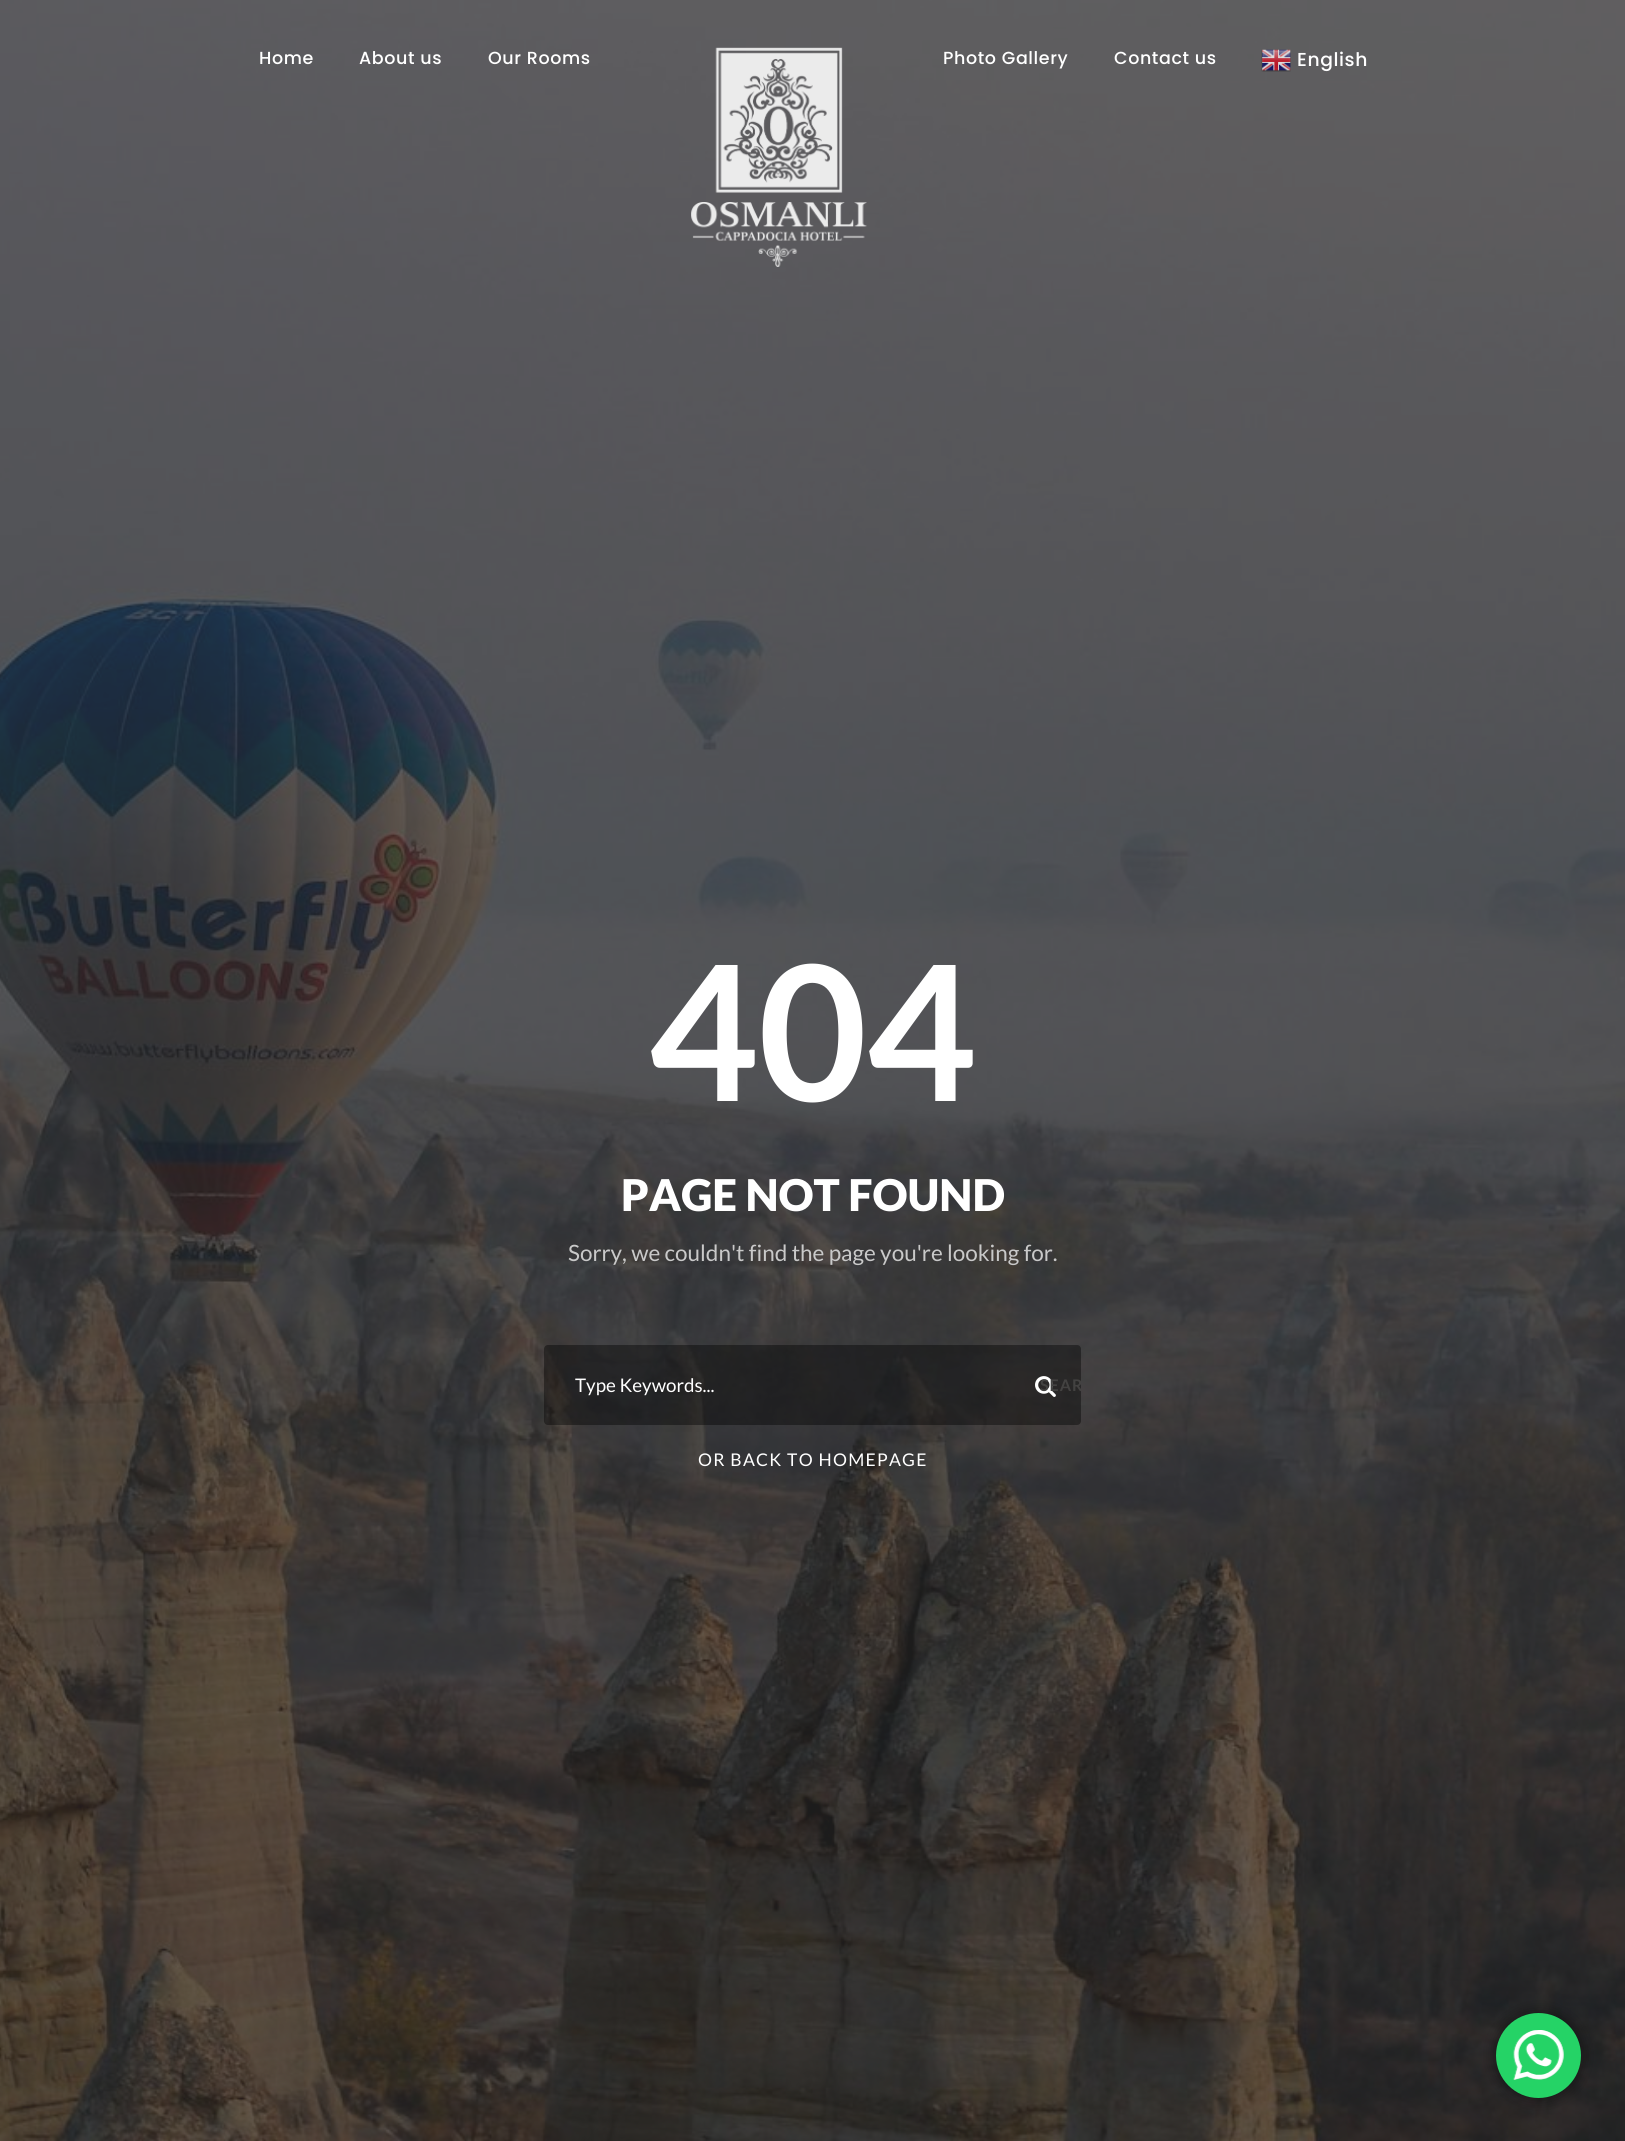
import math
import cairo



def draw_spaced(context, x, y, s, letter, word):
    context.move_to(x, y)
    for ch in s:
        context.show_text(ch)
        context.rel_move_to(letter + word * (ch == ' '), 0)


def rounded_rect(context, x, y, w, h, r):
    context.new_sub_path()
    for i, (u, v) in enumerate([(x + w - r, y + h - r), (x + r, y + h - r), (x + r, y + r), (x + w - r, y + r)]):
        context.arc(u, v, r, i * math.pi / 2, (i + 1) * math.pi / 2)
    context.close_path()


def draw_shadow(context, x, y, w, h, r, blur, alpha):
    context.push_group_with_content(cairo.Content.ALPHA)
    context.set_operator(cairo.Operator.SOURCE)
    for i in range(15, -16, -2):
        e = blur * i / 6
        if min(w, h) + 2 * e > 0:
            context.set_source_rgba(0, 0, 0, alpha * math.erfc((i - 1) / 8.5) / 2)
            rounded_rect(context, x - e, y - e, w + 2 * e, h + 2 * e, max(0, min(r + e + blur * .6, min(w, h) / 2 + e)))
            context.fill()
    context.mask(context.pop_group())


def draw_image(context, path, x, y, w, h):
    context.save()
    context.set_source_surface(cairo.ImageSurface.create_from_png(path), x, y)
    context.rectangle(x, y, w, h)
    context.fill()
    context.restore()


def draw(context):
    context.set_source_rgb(38 / 255, 38 / 255, 38 / 255)
    context.paint()
    draw_image(context, "images/3.png", 0, 0, 1625, 2141)
    draw_image(context, "images/1.png", 691, 47, 176, 220)
    draw_image(context, "images/2.png", 1261, 49, 30, 23)
    context.set_source_rgba(0, 0, 0, 0.4)
    rounded_rect(context, 544, 1345, 537, 80, 4)
    context.fill()
    draw_image(context, "images/4.png", 1035, 1376, 21, 21)
    context.set_source_rgb(0, 0, 0)
    draw_shadow(context, 1496, 2013, 85, 85, 42.5, 7, 0.5)
    context.set_source_rgb(37 / 255, 211 / 255, 102 / 255)
    context.arc(1538.5, 2055.5, 42.5, 0, 2 * math.pi)
    context.fill()
    draw_image(context, "images/5.png", 1513, 2030, 51, 50)
    context.select_font_face("Poppins Medium")
    context.set_font_size(17.5)
    context.set_source_rgb(1, 1, 1)
    draw_spaced(context, 259, 64, "Home", 0.6, 0)
    draw_spaced(context, 359, 64, "About us", 0.6, 0)
    draw_spaced(context, 488, 64, "Our Rooms", 0.6, 0)
    draw_spaced(context, 943, 64, "Photo Gallery", 0.6, 0)
    draw_spaced(context, 1114, 64, "Contact us", 0.6, 0)
    context.set_font_size(18.75)
    draw_spaced(context, 1297, 66, "English", 0.6, 0)
    context.select_font_face("Lato", cairo.FontSlant.NORMAL, cairo.FontWeight.BOLD)
    context.set_font_size(188)
    context.move_to(649, 1101)
    context.show_text("404")
    context.select_font_face("Lato Black")
    context.set_font_size(43.75)
    context.move_to(621, 1211)
    context.show_text("PAGE NOT FOUND")
    context.select_font_face("Lato")
    context.set_font_size(22.5)
    context.set_source_rgb(201 / 255, 201 / 255, 201 / 255)
    context.move_to(568, 1261)
    context.show_text("Sorry, we couldn't find the page you're looking for.")
    context.set_font_size(18.75)
    context.set_source_rgb(1, 1, 1)
    context.move_to(575, 1392)
    context.show_text("Type Keywords...")
    context.save()
    context.rectangle(999, 1345, 82, 80)
    context.clip()
    context.select_font_face("Lato", cairo.FontSlant.NORMAL, cairo.FontWeight.BOLD)
    context.set_font_size(16)
    context.set_source_rgb(67 / 255, 66 / 255, 65 / 255)
    draw_spaced(context, 1040, 1391, "SEAR", 1, 0)
    context.restore()
    context.set_font_size(17.5)
    draw_spaced(context, 698, 1466, "OR BACK TO HOMEPAGE", 1.25, 0)


surface = cairo.ImageSurface(cairo.Format.RGB24, 1625, 2141)
context = cairo.Context(surface)
options = cairo.FontOptions()
options.set_hint_metrics(cairo.HintMetrics.OFF)
options.set_hint_style(cairo.HintStyle.NONE)
context.set_font_options(options)
context.set_miter_limit(4)
draw(context)
surface.write_to_png("out.png")
